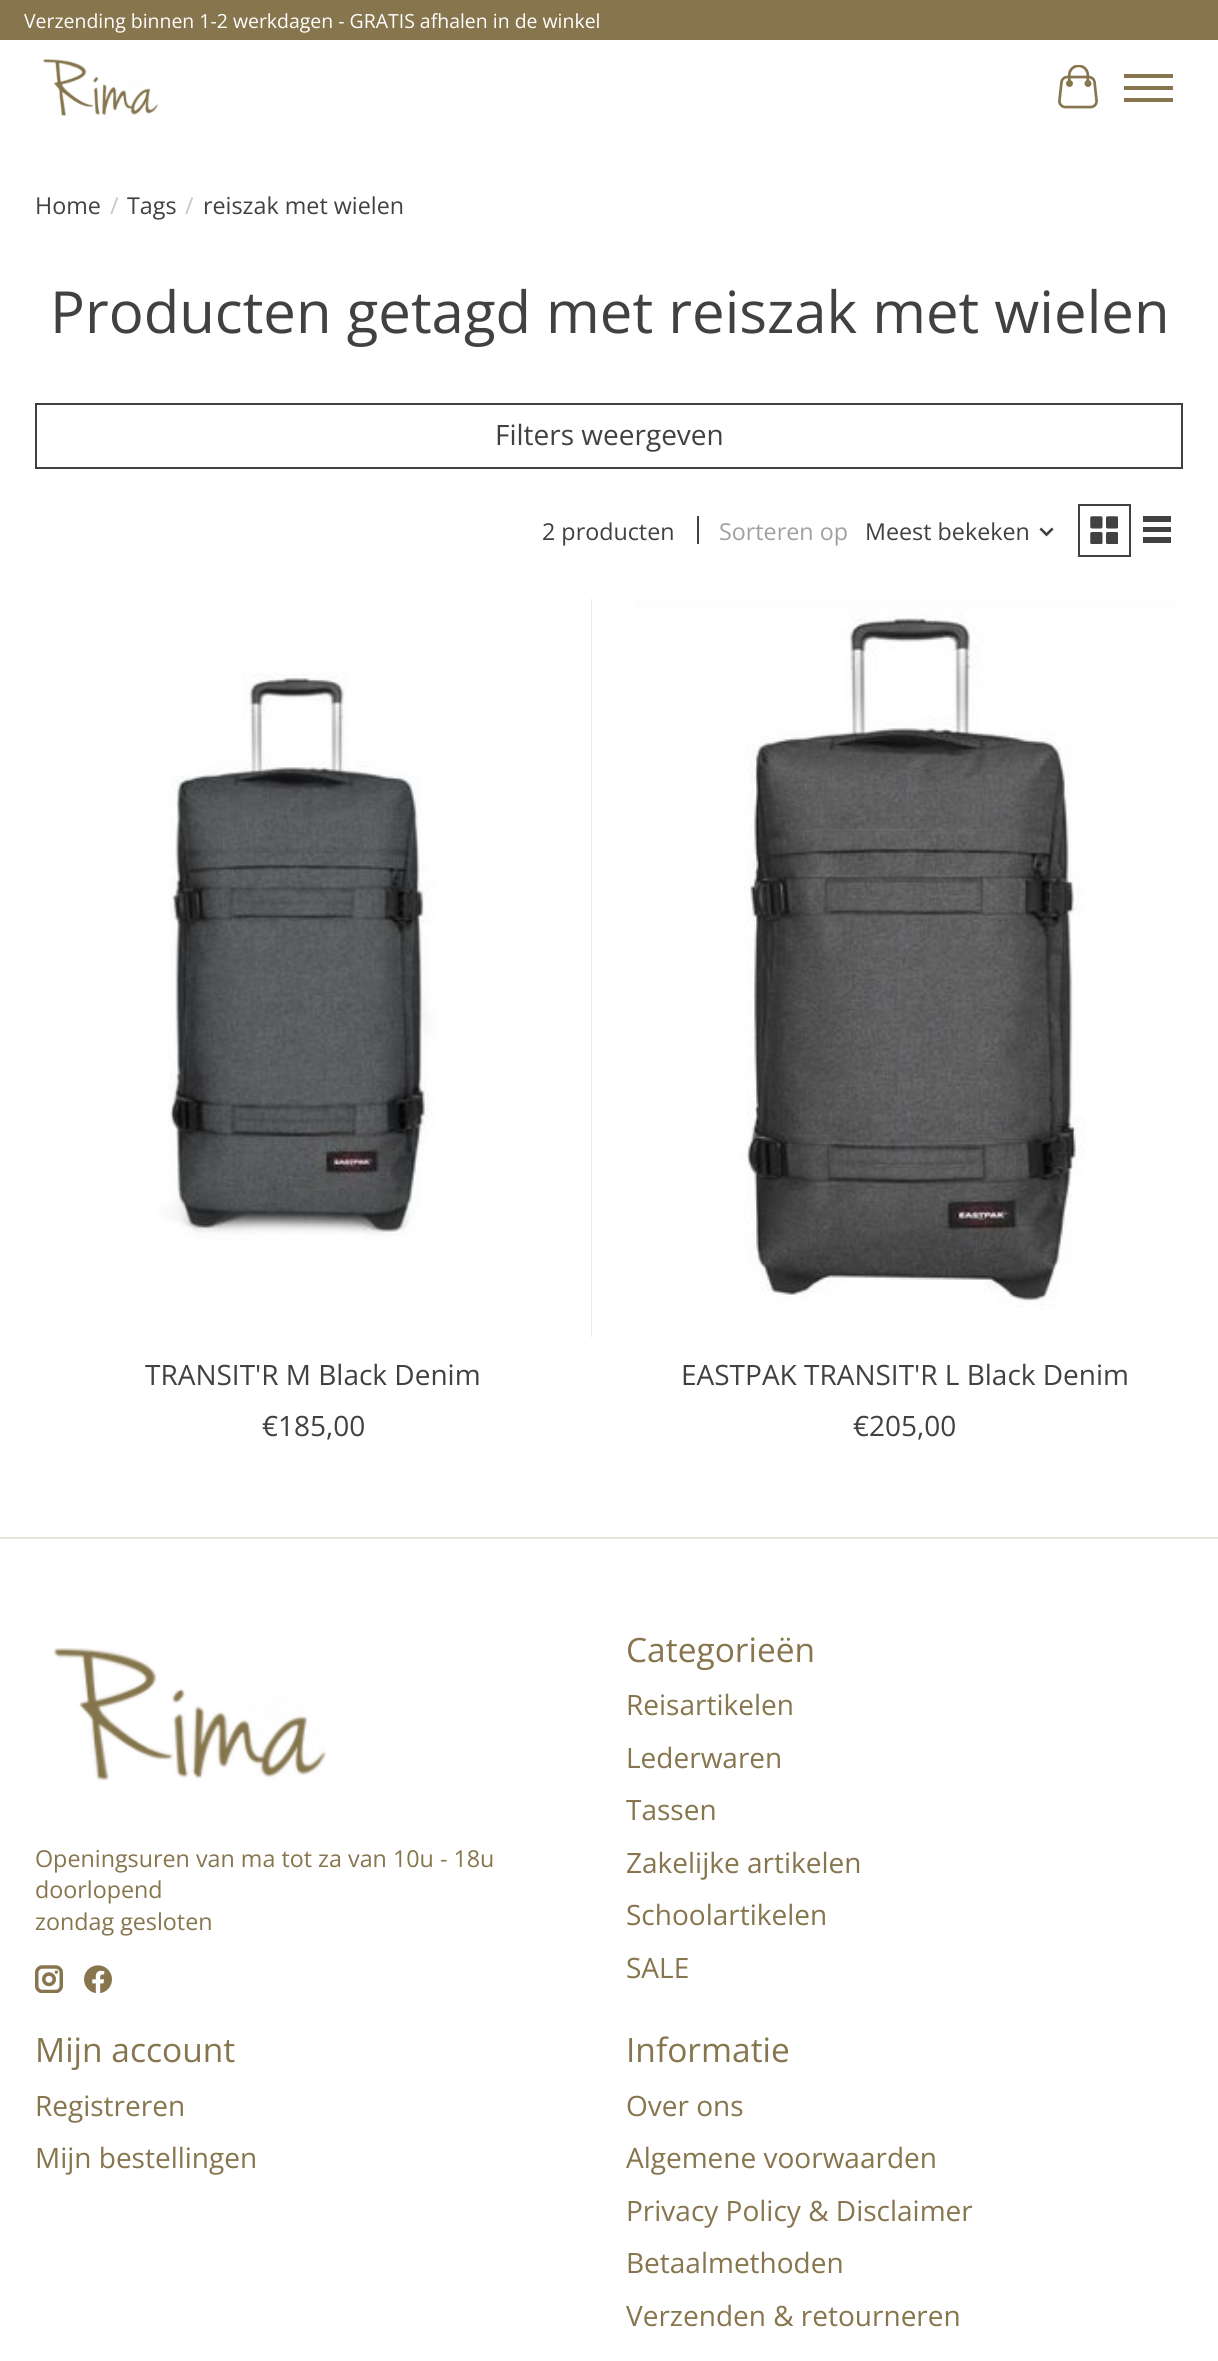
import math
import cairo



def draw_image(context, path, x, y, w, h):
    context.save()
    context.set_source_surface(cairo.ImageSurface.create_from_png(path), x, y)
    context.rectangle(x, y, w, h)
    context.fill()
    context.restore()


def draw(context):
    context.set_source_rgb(1, 1, 1)
    context.paint()
    context.set_source_rgb(134 / 255, 117 / 255, 77 / 255)
    context.rectangle(0, 0, 1218, 40)
    context.fill()
    draw_image(context, "images/1.png", 43, 59, 115, 57)
    draw_image(context, "images/2.png", 1058, 65, 40, 44)
    context.rectangle(1124, 86, 49, 4)
    context.fill()
    context.rectangle(1124, 74, 49, 4)
    context.fill()
    context.rectangle(1124, 98, 49, 4)
    context.fill()
    context.rectangle(36, 404, 1146, 64)
    context.set_source_rgb(65 / 255, 65 / 255, 65 / 255)
    context.stroke()
    context.rectangle(697, 516, 2, 28)
    context.fill()
    draw_image(context, "images/3.png", 1039, 527, 15, 10)
    context.rectangle(1079, 505, 51, 51)
    context.stroke()
    draw_image(context, "images/4.png", 1090, 516, 28, 28)
    context.rectangle(1143, 516, 28, 6)
    context.fill()
    context.rectangle(1143, 527, 28, 5)
    context.fill()
    context.rectangle(1143, 537, 28, 6)
    context.fill()
    context.set_source_rgb(227 / 255, 227 / 255, 227 / 255)
    context.rectangle(591, 599, 1, 738)
    context.fill()
    draw_image(context, "images/5.png", 35, 599, 557, 738)
    draw_image(context, "images/6.png", 627, 599, 556, 738)
    context.set_source_rgb(231 / 255, 227 / 255, 219 / 255)
    context.rectangle(0, 1537, 1218, 2)
    context.fill()
    draw_image(context, "images/7.png", 53, 1648, 273, 133)
    draw_image(context, "images/8.png", 35, 1965, 28, 28)
    draw_image(context, "images/9.png", 84, 1965, 28, 28)
    context.select_font_face("Open Sans")
    context.set_font_size(19.45)
    context.set_source_rgb(1, 1, 1)
    context.move_to(24, 28)
    context.show_text("Verzending binnen 1-2 werkdagen - GRATIS afhalen in de winkel")
    context.set_font_size(23.3)
    context.set_source_rgb(65 / 255, 65 / 255, 65 / 255)
    context.move_to(35, 214)
    context.show_text("Home")
    context.set_source_rgb(198 / 255, 198 / 255, 198 / 255)
    context.move_to(110, 214)
    context.show_text("/")
    context.set_source_rgb(65 / 255, 65 / 255, 65 / 255)
    context.move_to(127, 214)
    context.show_text("Tags")
    context.set_source_rgb(198 / 255, 198 / 255, 198 / 255)
    context.move_to(185, 214)
    context.show_text("/")
    context.set_source_rgb(65 / 255, 65 / 255, 65 / 255)
    context.move_to(203, 214)
    context.show_text("reiszak met wielen")
    context.set_font_size(58.1)
    context.move_to(50, 333)
    context.show_text("Producten getagd met reiszak met wielen")
    context.set_font_size(28)
    context.move_to(495, 445)
    context.show_text("Filters weergeven")
    context.set_font_size(23.3)
    context.move_to(542, 540)
    context.show_text("2 producten")
    context.set_source_rgb(160 / 255, 160 / 255, 160 / 255)
    context.move_to(719, 540)
    context.show_text("Sorteren op")
    context.set_source_rgb(65 / 255, 65 / 255, 65 / 255)
    context.move_to(865, 540)
    context.show_text("Meest bekeken")
    context.set_font_size(28)
    context.move_to(145, 1385)
    context.show_text("TRANSIT'R M Black Denim")
    context.move_to(262, 1436)
    context.show_text("€185,00")
    context.move_to(681, 1385)
    context.show_text("EASTPAK TRANSIT'R L Black Denim")
    context.move_to(853, 1436)
    context.show_text("€205,00")
    context.set_font_size(23.3)
    context.set_source_rgb(134 / 255, 117 / 255, 77 / 255)
    context.move_to(35, 1867)
    context.show_text("Openingsuren van ma tot za van 10u - 18u")
    context.move_to(35, 1898)
    context.show_text("doorlopend")
    context.move_to(35, 1930)
    context.show_text("zondag gesloten")
    context.set_font_size(33.5)
    context.move_to(626, 1662)
    context.show_text("Categorieën")
    context.set_font_size(28)
    context.move_to(626, 1715)
    context.show_text("Reisartikelen")
    context.move_to(626, 1768)
    context.show_text("Lederwaren")
    context.move_to(626, 1820)
    context.show_text("Tassen")
    context.move_to(626, 1873)
    context.show_text("Zakelijke artikelen")
    context.move_to(626, 1925)
    context.show_text("Schoolartikelen")
    context.move_to(626, 1978)
    context.show_text("SALE")
    context.set_font_size(33.5)
    context.move_to(35, 2062)
    context.show_text("Mijn account")
    context.set_font_size(28)
    context.move_to(35, 2116)
    context.show_text("Registreren")
    context.move_to(35, 2168)
    context.show_text("Mijn bestellingen")
    context.set_font_size(33.5)
    context.move_to(626, 2062)
    context.show_text("Informatie")
    context.set_font_size(28)
    context.move_to(626, 2116)
    context.show_text("Over ons")
    context.move_to(626, 2168)
    context.show_text("Algemene voorwaarden")
    context.move_to(626, 2221)
    context.show_text("Privacy Policy & Disclaimer")
    context.move_to(626, 2273)
    context.show_text("Betaalmethoden")
    context.move_to(626, 2326)
    context.show_text("Verzenden & retourneren")


surface = cairo.ImageSurface(cairo.Format.RGB24, 1218, 2361)
context = cairo.Context(surface)
options = cairo.FontOptions()
options.set_hint_metrics(cairo.HintMetrics.OFF)
options.set_hint_style(cairo.HintStyle.NONE)
context.set_font_options(options)
context.set_miter_limit(4)
draw(context)
surface.write_to_png("out.png")
